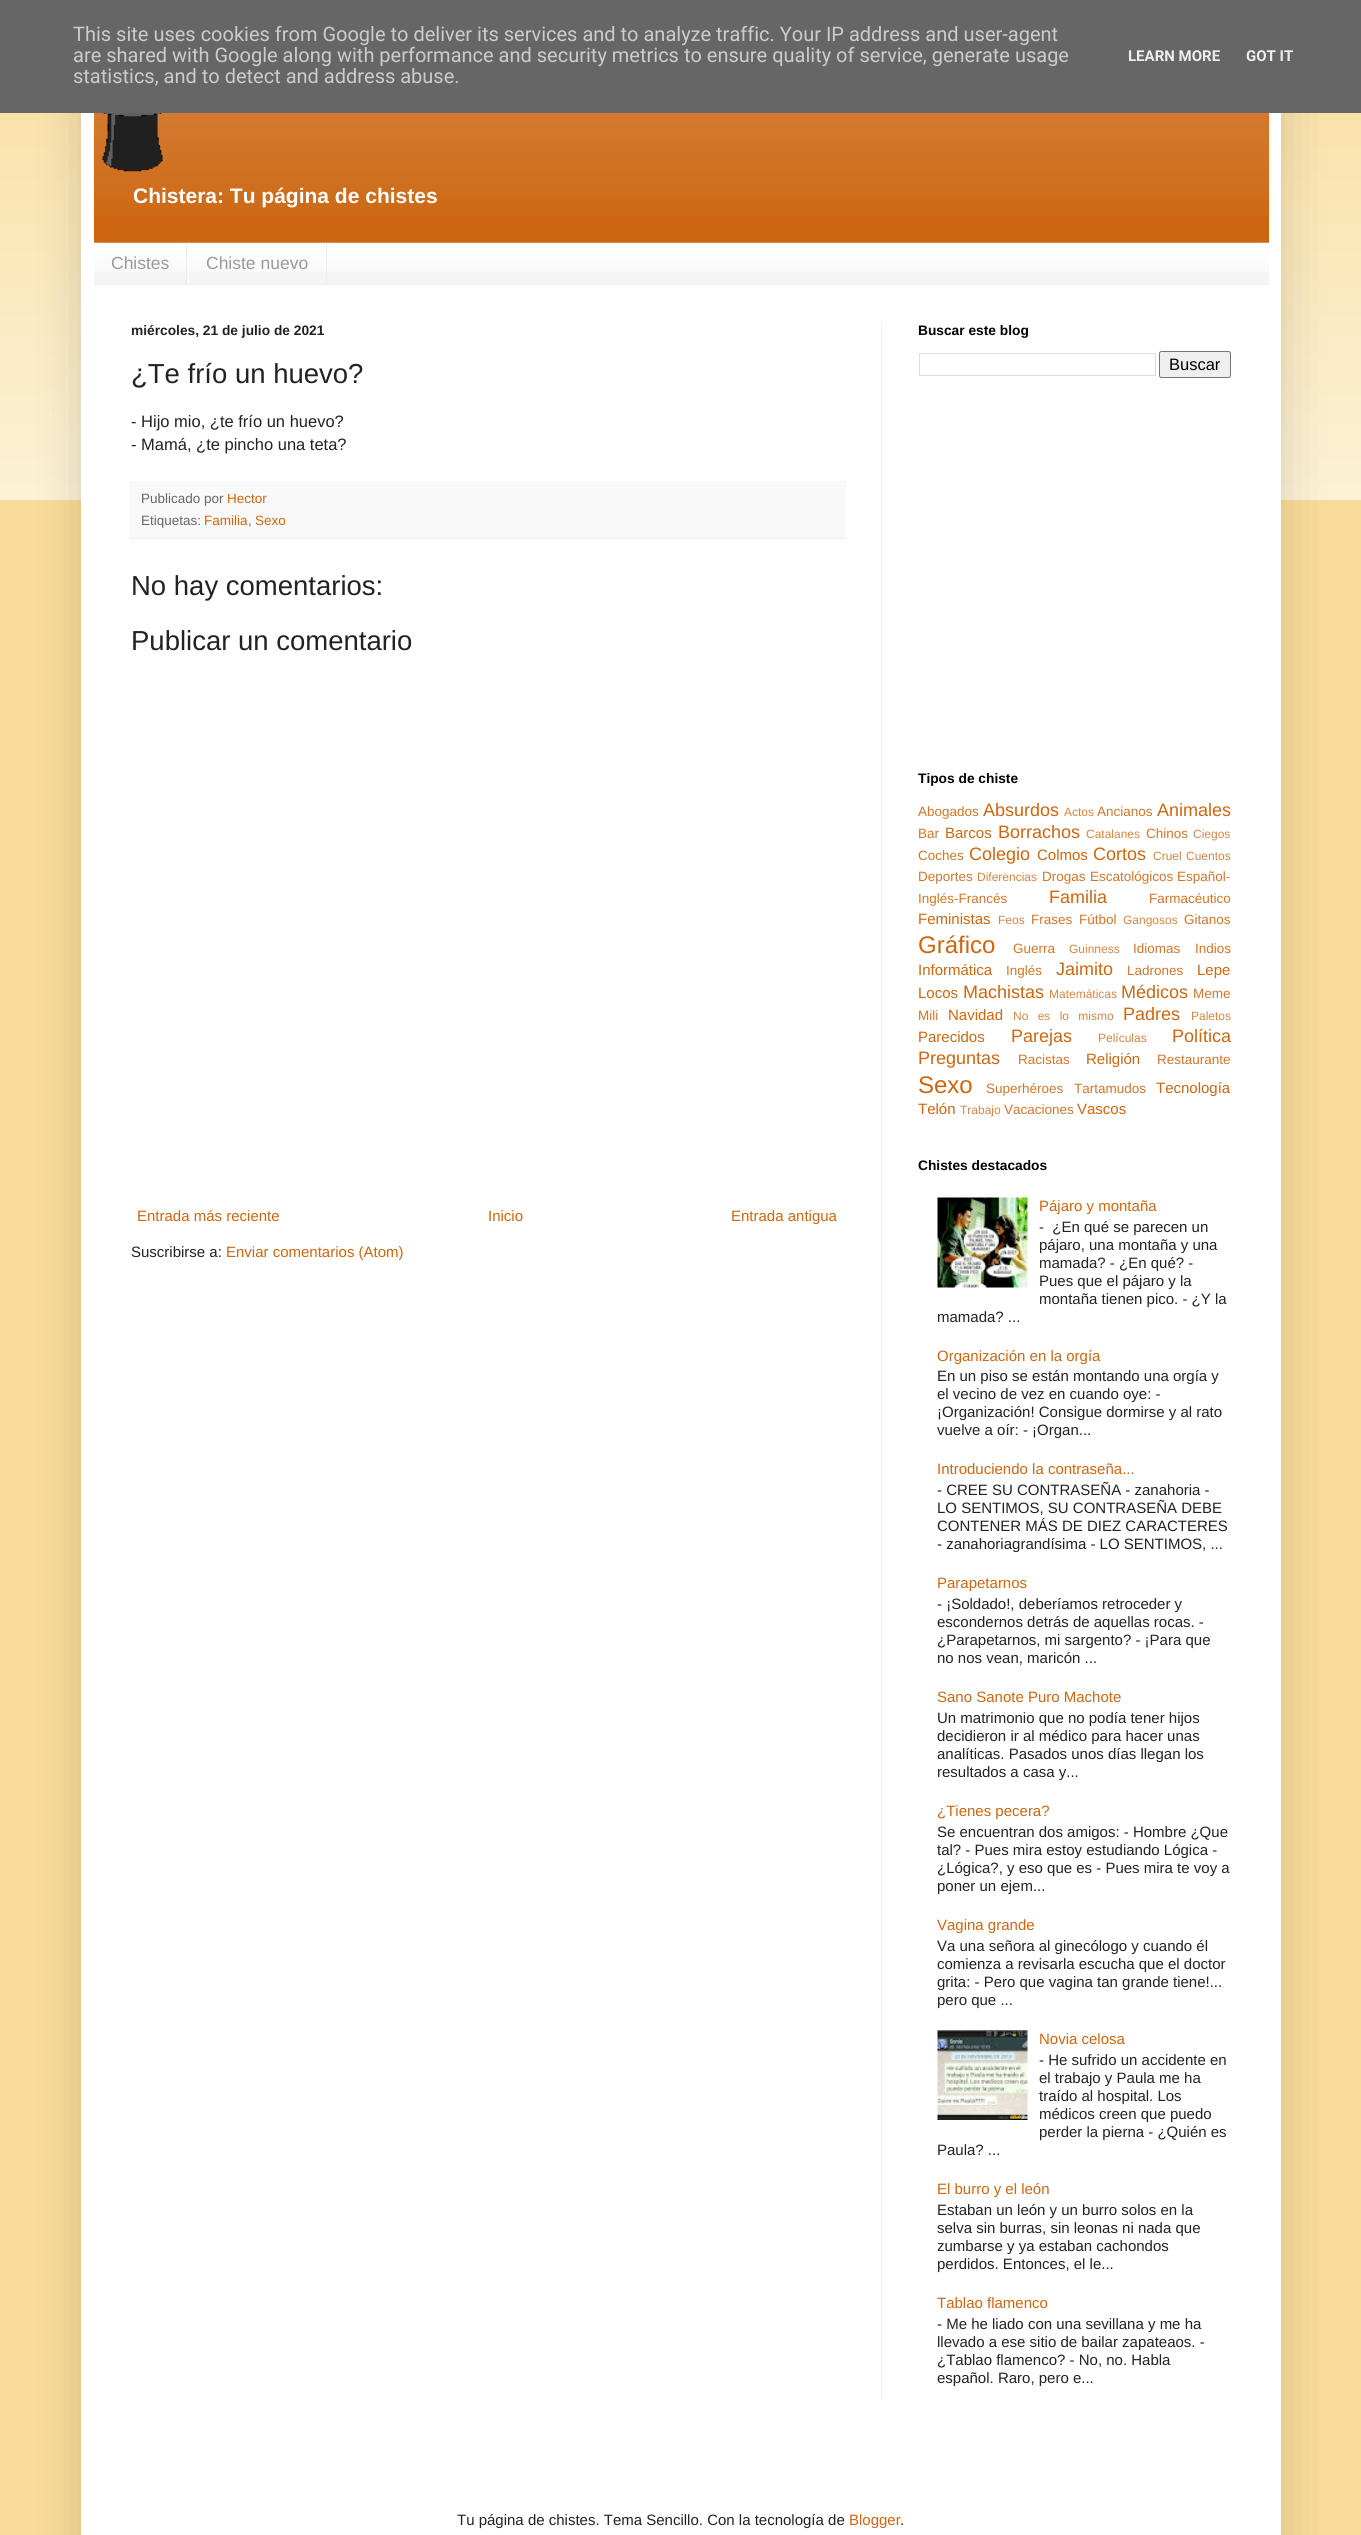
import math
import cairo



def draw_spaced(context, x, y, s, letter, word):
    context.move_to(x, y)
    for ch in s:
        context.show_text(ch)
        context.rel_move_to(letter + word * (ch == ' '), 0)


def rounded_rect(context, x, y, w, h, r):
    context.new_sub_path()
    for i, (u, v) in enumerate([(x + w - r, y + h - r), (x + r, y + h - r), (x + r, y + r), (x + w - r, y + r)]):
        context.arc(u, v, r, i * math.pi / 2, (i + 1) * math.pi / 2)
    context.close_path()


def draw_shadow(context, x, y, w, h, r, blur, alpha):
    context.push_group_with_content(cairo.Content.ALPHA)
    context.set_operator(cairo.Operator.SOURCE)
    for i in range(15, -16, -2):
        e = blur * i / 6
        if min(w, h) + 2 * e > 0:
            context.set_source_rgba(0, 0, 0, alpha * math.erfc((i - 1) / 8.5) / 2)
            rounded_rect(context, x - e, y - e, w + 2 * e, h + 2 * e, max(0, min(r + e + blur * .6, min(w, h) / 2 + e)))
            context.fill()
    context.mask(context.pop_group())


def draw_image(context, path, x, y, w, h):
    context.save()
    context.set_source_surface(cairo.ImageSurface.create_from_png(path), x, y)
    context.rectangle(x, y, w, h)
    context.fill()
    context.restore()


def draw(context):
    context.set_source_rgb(249 / 255, 220 / 255, 153 / 255)
    context.paint()
    draw_image(context, "images/1.png", 0, 113, 1361, 387)
    context.set_source_rgb(0, 0, 0)
    draw_shadow(context, 81, 38, 1200, 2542, 0, 25, 0.15)
    context.set_source_rgb(102 / 255, 102 / 255, 102 / 255)
    context.rectangle(0, 0, 1361, 113)
    context.fill()
    context.set_source_rgb(1, 1, 1)
    context.rectangle(81, 113, 1200, 2422)
    context.fill()
    context.set_source_rgb(204 / 255, 102 / 255, 17 / 255)
    context.rectangle(94, 113, 1175, 130)
    context.fill()
    draw_image(context, "images/2.png", 94, 113, 1175, 103)
    draw_image(context, "images/3.png", 102, 113, 61, 59)
    context.set_source_rgb(245 / 255, 245 / 255, 245 / 255)
    context.rectangle(94, 243, 1175, 41)
    context.fill()
    draw_image(context, "images/4.png", 94, 242, 1175, 30)
    context.set_source_rgb(238 / 255, 238 / 255, 238 / 255)
    context.rectangle(94, 284, 1175, 1)
    context.fill()
    context.rectangle(186, 243, 1, 41)
    context.fill()
    context.rectangle(326, 243, 1, 41)
    context.fill()
    context.set_source_rgb(1, 1, 1)
    context.rectangle(188, 256, 1, 28)
    context.fill()
    context.set_source_rgb(238 / 255, 238 / 255, 238 / 255)
    context.rectangle(881, 323, 1, 2075)
    context.fill()
    context.set_source_rgb(249 / 255, 249 / 255, 249 / 255)
    context.rectangle(129, 481, 717, 57)
    context.fill()
    context.set_source_rgb(238 / 255, 238 / 255, 238 / 255)
    context.rectangle(129, 538, 717, 1)
    context.fill()
    context.rectangle(919.5, 353.5, 236, 22)
    context.set_source_rgb(221 / 255, 221 / 255, 221 / 255)
    context.set_line_width(1)
    context.stroke()
    context.set_source_rgb(239 / 255, 239 / 255, 239 / 255)
    rounded_rect(context, 1159.5, 351.5, 71, 26, 2)
    context.fill_preserve()
    context.set_source_rgb(118 / 255, 118 / 255, 118 / 255)
    context.stroke()
    draw_image(context, "images/5.png", 937, 1197, 91, 91)
    draw_image(context, "images/6.png", 937, 2030, 91, 90)
    context.select_font_face("Roboto")
    context.set_font_size(20)
    context.set_source_rgb(204 / 255, 204 / 255, 204 / 255)
    context.move_to(73, 41)
    context.show_text("This site uses cookies from Google to deliver its services and to analyze traffic. Your IP address and user-agent")
    context.move_to(73, 62)
    context.show_text("are shared with Google along with performance and security metrics to ensure quality of service, generate usage")
    context.move_to(73, 83)
    context.show_text("statistics, and to detect and address abuse.")
    context.select_font_face("Roboto", cairo.FontSlant.NORMAL, cairo.FontWeight.BOLD)
    context.set_font_size(15)
    context.set_source_rgb(238 / 255, 238 / 255, 238 / 255)
    context.move_to(1128, 61)
    context.show_text("LEARN MORE")
    context.move_to(1246, 61)
    context.show_text("GOT IT")
    context.select_font_face("Liberation Sans", cairo.FontSlant.NORMAL, cairo.FontWeight.BOLD)
    context.set_font_size(21)
    context.set_source_rgb(1, 1, 1)
    context.move_to(133, 203)
    context.show_text("Chistera: Tu página de chistes")
    context.select_font_face("Liberation Sans")
    context.set_font_size(17.5)
    context.set_source_rgb(153 / 255, 153 / 255, 153 / 255)
    context.move_to(111, 269)
    context.show_text("Chistes")
    context.move_to(206, 269)
    context.show_text("Chiste nuevo")
    context.select_font_face("Liberation Sans", cairo.FontSlant.NORMAL, cairo.FontWeight.BOLD)
    context.set_font_size(13.75)
    context.set_source_rgb(34 / 255, 34 / 255, 34 / 255)
    context.move_to(131, 335)
    context.show_text("miércoles, 21 de julio de 2021")
    context.select_font_face("Liberation Sans")
    context.set_font_size(27.5)
    context.move_to(131, 383)
    context.show_text("¿Te frío un huevo?")
    context.set_font_size(16.5)
    context.move_to(131, 427)
    context.show_text("- Hijo mio, ¿te frío un huevo?")
    context.move_to(131, 450)
    context.show_text("- Mamá, ¿te pincho una teta?")
    context.set_font_size(13.5)
    context.set_source_rgb(102 / 255, 102 / 255, 102 / 255)
    context.move_to(141, 503)
    context.show_text("Publicado por")
    context.set_source_rgb(204 / 255, 102 / 255, 17 / 255)
    context.move_to(227, 503)
    context.show_text("Hector")
    context.set_source_rgb(102 / 255, 102 / 255, 102 / 255)
    context.move_to(141, 525)
    context.show_text("Etiquetas:")
    context.set_source_rgb(204 / 255, 102 / 255, 17 / 255)
    context.move_to(204, 525)
    context.show_text("Familia")
    context.set_source_rgb(102 / 255, 102 / 255, 102 / 255)
    context.move_to(248, 525)
    context.show_text(",")
    context.set_source_rgb(204 / 255, 102 / 255, 17 / 255)
    context.move_to(255, 525)
    context.show_text("Sexo")
    context.set_font_size(27.5)
    context.set_source_rgb(34 / 255, 34 / 255, 34 / 255)
    context.move_to(131, 595)
    context.show_text("No hay comentarios:")
    context.move_to(131, 650)
    context.show_text("Publicar un comentario")
    context.set_font_size(15)
    context.set_source_rgb(204 / 255, 102 / 255, 17 / 255)
    context.move_to(137, 1221)
    context.show_text("Entrada más reciente")
    context.move_to(488, 1221)
    context.show_text("Inicio")
    context.move_to(731, 1221)
    context.show_text("Entrada antigua")
    context.set_source_rgb(34 / 255, 34 / 255, 34 / 255)
    context.move_to(131, 1257)
    context.show_text("Suscribirse a:")
    context.set_source_rgb(204 / 255, 102 / 255, 17 / 255)
    context.move_to(226, 1257)
    context.show_text("Enviar comentarios (Atom)")
    context.select_font_face("Liberation Sans", cairo.FontSlant.NORMAL, cairo.FontWeight.BOLD)
    context.set_font_size(13.75)
    context.set_source_rgb(0, 0, 0)
    context.move_to(918, 335)
    context.show_text("Buscar este blog")
    context.select_font_face("Liberation Sans")
    context.set_font_size(16.5)
    context.move_to(1169, 370)
    context.show_text("Buscar")
    context.select_font_face("Liberation Sans", cairo.FontSlant.NORMAL, cairo.FontWeight.BOLD)
    context.set_font_size(13.75)
    context.move_to(918, 783)
    context.show_text("Tipos de chiste")
    context.select_font_face("Liberation Sans")
    context.set_font_size(13.5)
    context.set_source_rgb(209 / 255, 117 / 255, 41 / 255)
    context.move_to(918, 816)
    context.show_text("Abogados")
    context.set_font_size(18)
    context.set_source_rgb(204 / 255, 102 / 255, 17 / 255)
    context.move_to(983, 816)
    context.show_text("Absurdos")
    context.set_font_size(12)
    context.set_source_rgb(214 / 255, 133 / 255, 65 / 255)
    context.move_to(1064, 816)
    context.show_text("Actos")
    context.set_font_size(13.5)
    context.set_source_rgb(209 / 255, 117 / 255, 41 / 255)
    context.move_to(1097, 816)
    context.show_text("Ancianos")
    context.set_font_size(18)
    context.set_source_rgb(204 / 255, 102 / 255, 17 / 255)
    context.move_to(1157, 816)
    context.show_text("Animales")
    context.set_font_size(13.5)
    context.set_source_rgb(209 / 255, 117 / 255, 41 / 255)
    context.move_to(918, 838)
    context.show_text("Bar")
    context.set_font_size(15)
    context.set_source_rgb(204 / 255, 102 / 255, 17 / 255)
    context.move_to(945, 838)
    context.show_text("Barcos")
    context.set_font_size(18)
    context.move_to(998, 838)
    context.show_text("Borrachos")
    context.set_font_size(12)
    context.set_source_rgb(214 / 255, 133 / 255, 65 / 255)
    context.move_to(1086, 838)
    context.show_text("Catalanes")
    context.set_font_size(13.5)
    context.set_source_rgb(209 / 255, 117 / 255, 41 / 255)
    context.move_to(1146, 838)
    context.show_text("Chinos")
    context.set_font_size(12)
    context.set_source_rgb(214 / 255, 133 / 255, 65 / 255)
    context.move_to(1193, 838)
    context.show_text("Ciegos")
    context.set_font_size(13.5)
    context.set_source_rgb(209 / 255, 117 / 255, 41 / 255)
    context.move_to(918, 860)
    context.show_text("Coches")
    context.set_font_size(18)
    context.set_source_rgb(204 / 255, 102 / 255, 17 / 255)
    context.move_to(969, 860)
    context.show_text("Colegio")
    context.set_font_size(15)
    context.move_to(1037, 860)
    context.show_text("Colmos")
    context.set_font_size(18)
    context.move_to(1093, 860)
    context.show_text("Cortos")
    context.set_font_size(12)
    context.set_source_rgb(214 / 255, 133 / 255, 65 / 255)
    context.move_to(1153, 860)
    context.show_text("Cruel")
    context.move_to(1186, 860)
    context.show_text("Cuentos")
    context.set_font_size(13.5)
    context.set_source_rgb(209 / 255, 117 / 255, 41 / 255)
    context.move_to(918, 881)
    context.show_text("Deportes")
    context.set_font_size(12)
    context.set_source_rgb(214 / 255, 133 / 255, 65 / 255)
    context.move_to(977, 881)
    context.show_text("Diferencias")
    context.set_font_size(13.5)
    context.set_source_rgb(209 / 255, 117 / 255, 41 / 255)
    context.move_to(1042, 881)
    context.show_text("Drogas")
    context.move_to(1090, 881)
    context.show_text("Escatológicos")
    context.move_to(1177, 881)
    context.show_text("Español-")
    context.move_to(918, 903)
    context.show_text("Inglés-Francés")
    context.set_font_size(18)
    context.set_source_rgb(204 / 255, 102 / 255, 17 / 255)
    context.move_to(1049, 903)
    context.show_text("Familia")
    context.set_font_size(13.5)
    context.set_source_rgb(209 / 255, 117 / 255, 41 / 255)
    context.move_to(1149, 903)
    context.show_text("Farmacéutico")
    context.set_font_size(15)
    context.set_source_rgb(204 / 255, 102 / 255, 17 / 255)
    context.move_to(918, 924)
    context.show_text("Feministas")
    context.set_font_size(12)
    context.set_source_rgb(214 / 255, 133 / 255, 65 / 255)
    context.move_to(998, 924)
    context.show_text("Feos")
    context.set_font_size(13.5)
    context.set_source_rgb(209 / 255, 117 / 255, 41 / 255)
    context.move_to(1031, 924)
    context.show_text("Frases")
    context.move_to(1079, 924)
    context.show_text("Fútbol")
    context.set_font_size(12)
    context.set_source_rgb(214 / 255, 133 / 255, 65 / 255)
    context.move_to(1123, 924)
    context.show_text("Gangosos")
    context.set_font_size(13.5)
    context.set_source_rgb(209 / 255, 117 / 255, 41 / 255)
    context.move_to(1184, 924)
    context.show_text("Gitanos")
    context.set_font_size(24)
    context.set_source_rgb(204 / 255, 102 / 255, 17 / 255)
    context.move_to(918, 953)
    context.show_text("Gráfico")
    context.set_font_size(13.5)
    context.set_source_rgb(209 / 255, 117 / 255, 41 / 255)
    context.move_to(1013, 953)
    context.show_text("Guerra")
    context.set_font_size(12)
    context.set_source_rgb(214 / 255, 133 / 255, 65 / 255)
    context.move_to(1069, 953)
    context.show_text("Guinness")
    context.set_font_size(13.5)
    context.set_source_rgb(209 / 255, 117 / 255, 41 / 255)
    context.move_to(1133, 953)
    context.show_text("Idiomas")
    context.move_to(1195, 953)
    context.show_text("Indios")
    context.set_font_size(15)
    context.set_source_rgb(204 / 255, 102 / 255, 17 / 255)
    context.move_to(918, 975)
    context.show_text("Informática")
    context.set_font_size(13.5)
    context.set_source_rgb(209 / 255, 117 / 255, 41 / 255)
    context.move_to(1006, 975)
    context.show_text("Inglés")
    context.set_font_size(18)
    context.set_source_rgb(204 / 255, 102 / 255, 17 / 255)
    context.move_to(1056, 975)
    context.show_text("Jaimito")
    context.set_font_size(13.5)
    context.set_source_rgb(209 / 255, 117 / 255, 41 / 255)
    context.move_to(1127, 975)
    context.show_text("Ladrones")
    context.set_font_size(15)
    context.set_source_rgb(204 / 255, 102 / 255, 17 / 255)
    context.move_to(1197, 975)
    context.show_text("Lepe")
    context.move_to(918, 998)
    context.show_text("Locos")
    context.set_font_size(18)
    context.move_to(963, 998)
    context.show_text("Machistas")
    context.set_font_size(12)
    context.set_source_rgb(214 / 255, 133 / 255, 65 / 255)
    context.move_to(1049, 998)
    context.show_text("Matemáticas")
    context.set_font_size(18)
    context.set_source_rgb(204 / 255, 102 / 255, 17 / 255)
    context.move_to(1121, 998)
    context.show_text("Médicos")
    context.set_font_size(13.5)
    context.set_source_rgb(209 / 255, 117 / 255, 41 / 255)
    context.move_to(1193, 998)
    context.show_text("Meme")
    context.move_to(918, 1020)
    context.show_text("Mili")
    context.set_font_size(15)
    context.set_source_rgb(204 / 255, 102 / 255, 17 / 255)
    context.move_to(948, 1020)
    context.show_text("Navidad")
    context.set_font_size(12)
    context.set_source_rgb(214 / 255, 133 / 255, 65 / 255)
    draw_spaced(context, 1013, 1020, "No es lo mismo", 0, 6)
    context.set_font_size(18)
    context.set_source_rgb(204 / 255, 102 / 255, 17 / 255)
    context.move_to(1123, 1020)
    context.show_text("Padres")
    context.set_font_size(12)
    context.set_source_rgb(214 / 255, 133 / 255, 65 / 255)
    context.move_to(1191, 1020)
    context.show_text("Paletos")
    context.set_font_size(15)
    context.set_source_rgb(204 / 255, 102 / 255, 17 / 255)
    context.move_to(918, 1042)
    context.show_text("Parecidos")
    context.set_font_size(18)
    context.move_to(1011, 1042)
    context.show_text("Parejas")
    context.set_font_size(12)
    context.set_source_rgb(214 / 255, 133 / 255, 65 / 255)
    context.move_to(1098, 1042)
    context.show_text("Películas")
    context.set_font_size(18)
    context.set_source_rgb(204 / 255, 102 / 255, 17 / 255)
    context.move_to(1172, 1042)
    context.show_text("Política")
    context.move_to(918, 1064)
    context.show_text("Preguntas")
    context.set_font_size(13.5)
    context.set_source_rgb(209 / 255, 117 / 255, 41 / 255)
    context.move_to(1018, 1064)
    context.show_text("Racistas")
    context.set_font_size(15)
    context.set_source_rgb(204 / 255, 102 / 255, 17 / 255)
    context.move_to(1086, 1064)
    context.show_text("Religión")
    context.set_font_size(13.5)
    context.set_source_rgb(209 / 255, 117 / 255, 41 / 255)
    context.move_to(1157, 1064)
    context.show_text("Restaurante")
    context.set_font_size(24)
    context.set_source_rgb(204 / 255, 102 / 255, 17 / 255)
    context.move_to(918, 1093)
    context.show_text("Sexo")
    context.set_font_size(13.5)
    context.set_source_rgb(209 / 255, 117 / 255, 41 / 255)
    context.move_to(986, 1093)
    context.show_text("Superhéroes")
    context.move_to(1074, 1093)
    context.show_text("Tartamudos")
    context.set_font_size(15)
    context.set_source_rgb(204 / 255, 102 / 255, 17 / 255)
    context.move_to(1156, 1093)
    context.show_text("Tecnología")
    context.move_to(918, 1114)
    context.show_text("Telón")
    context.set_font_size(12)
    context.set_source_rgb(214 / 255, 133 / 255, 65 / 255)
    context.move_to(960, 1114)
    context.show_text("Trabajo")
    context.set_font_size(13.5)
    context.set_source_rgb(209 / 255, 117 / 255, 41 / 255)
    context.move_to(1004, 1114)
    context.show_text("Vacaciones")
    context.set_font_size(15)
    context.set_source_rgb(204 / 255, 102 / 255, 17 / 255)
    context.move_to(1077, 1114)
    context.show_text("Vascos")
    context.select_font_face("Liberation Sans", cairo.FontSlant.NORMAL, cairo.FontWeight.BOLD)
    context.set_font_size(13.75)
    context.set_source_rgb(0, 0, 0)
    context.move_to(918, 1170)
    context.show_text("Chistes destacados")
    context.select_font_face("Liberation Sans")
    context.set_font_size(15)
    context.set_source_rgb(204 / 255, 102 / 255, 17 / 255)
    context.move_to(1039, 1211)
    context.show_text("Pájaro y montaña")
    context.set_source_rgb(34 / 255, 34 / 255, 34 / 255)
    context.move_to(1039, 1232)
    context.show_text("-  ¿En qué se parecen un")
    context.move_to(1039, 1250)
    context.show_text("pájaro, una montaña y una")
    context.move_to(1039, 1268)
    context.show_text("mamada? - ¿En qué? -")
    context.move_to(1039, 1286)
    context.show_text("Pues que el pájaro y la")
    context.move_to(1039, 1304)
    context.show_text("montaña tienen pico. - ¿Y la")
    context.move_to(937, 1322)
    context.show_text("mamada? ...")
    context.set_source_rgb(204 / 255, 102 / 255, 17 / 255)
    context.move_to(937, 1361)
    context.show_text("Organización en la orgía")
    context.set_source_rgb(34 / 255, 34 / 255, 34 / 255)
    context.move_to(937, 1381)
    context.show_text("En un piso se están montando una orgía y")
    context.move_to(937, 1399)
    context.show_text("el vecino de vez en cuando oye: -")
    context.move_to(937, 1417)
    context.show_text("¡Organización! Consigue dormirse y al rato")
    context.move_to(937, 1435)
    context.show_text("vuelve a oír: - ¡Organ...")
    context.set_source_rgb(204 / 255, 102 / 255, 17 / 255)
    context.move_to(937, 1474)
    context.show_text("Introduciendo la contraseña...")
    context.set_source_rgb(34 / 255, 34 / 255, 34 / 255)
    context.move_to(937, 1495)
    context.show_text("- CREE SU CONTRASEÑA - zanahoria -")
    context.move_to(937, 1513)
    context.show_text("LO SENTIMOS, SU CONTRASEÑA DEBE")
    context.move_to(937, 1531)
    context.show_text("CONTENER MÁS DE DIEZ CARACTERES")
    context.move_to(937, 1549)
    context.show_text("- zanahoriagrandísima - LO SENTIMOS, ...")
    context.set_source_rgb(204 / 255, 102 / 255, 17 / 255)
    context.move_to(937, 1588)
    context.show_text("Parapetarnos")
    context.set_source_rgb(34 / 255, 34 / 255, 34 / 255)
    context.move_to(937, 1609)
    context.show_text("- ¡Soldado!, deberíamos retroceder y")
    context.move_to(937, 1627)
    context.show_text("escondernos detrás de aquellas rocas. -")
    context.move_to(937, 1645)
    context.show_text("¿Parapetarnos, mi sargento? - ¡Para que")
    context.move_to(937, 1663)
    context.show_text("no nos vean, maricón ...")
    context.set_source_rgb(204 / 255, 102 / 255, 17 / 255)
    context.move_to(937, 1702)
    context.show_text("Sano Sanote Puro Machote")
    context.set_source_rgb(34 / 255, 34 / 255, 34 / 255)
    context.move_to(937, 1723)
    context.show_text("Un matrimonio que no podía tener hijos")
    context.move_to(937, 1741)
    context.show_text("decidieron ir al médico para hacer unas")
    context.move_to(937, 1759)
    context.show_text("analíticas. Pasados unos días llegan los")
    context.move_to(937, 1777)
    context.show_text("resultados a casa y...")
    context.set_source_rgb(204 / 255, 102 / 255, 17 / 255)
    context.move_to(937, 1816)
    context.show_text("¿Tienes pecera?")
    context.set_source_rgb(34 / 255, 34 / 255, 34 / 255)
    context.move_to(937, 1837)
    context.show_text("Se encuentran dos amigos: - Hombre ¿Que")
    context.move_to(937, 1855)
    context.show_text("tal? - Pues mira estoy estudiando Lógica -")
    context.move_to(937, 1873)
    context.show_text("¿Lógica?, y eso que es - Pues mira te voy a")
    context.move_to(937, 1891)
    context.show_text("poner un ejem...")
    context.set_source_rgb(204 / 255, 102 / 255, 17 / 255)
    context.move_to(937, 1930)
    context.show_text("Vagina grande")
    context.set_source_rgb(34 / 255, 34 / 255, 34 / 255)
    context.move_to(937, 1951)
    context.show_text("Va una señora al ginecólogo y cuando él")
    context.move_to(937, 1969)
    context.show_text("comienza a revisarla escucha que el doctor")
    context.move_to(937, 1987)
    context.show_text("grita: - Pero que vagina tan grande tiene!...")
    context.move_to(937, 2005)
    context.show_text("pero que ...")
    context.set_source_rgb(204 / 255, 102 / 255, 17 / 255)
    context.move_to(1039, 2044)
    context.show_text("Novia celosa")
    context.set_source_rgb(34 / 255, 34 / 255, 34 / 255)
    context.move_to(1039, 2065)
    context.show_text("- He sufrido un accidente en")
    context.move_to(1039, 2083)
    context.show_text("el trabajo y Paula me ha")
    context.move_to(1039, 2101)
    context.show_text("traído al hospital. Los")
    context.move_to(1039, 2119)
    context.show_text("médicos creen que puedo")
    context.move_to(1039, 2137)
    context.show_text("perder la pierna - ¿Quién es")
    context.move_to(937, 2155)
    context.show_text("Paula? ...")
    context.set_source_rgb(204 / 255, 102 / 255, 17 / 255)
    context.move_to(937, 2194)
    context.show_text("El burro y el león")
    context.set_source_rgb(34 / 255, 34 / 255, 34 / 255)
    context.move_to(937, 2215)
    context.show_text("Estaban un león y un burro solos en la")
    context.move_to(937, 2233)
    context.show_text("selva sin burras, sin leonas ni nada que")
    context.move_to(937, 2251)
    context.show_text("zumbarse y ya estaban cachondos")
    context.move_to(937, 2269)
    context.show_text("perdidos. Entonces, el le...")
    context.set_source_rgb(204 / 255, 102 / 255, 17 / 255)
    context.move_to(937, 2308)
    context.show_text("Tablao flamenco")
    context.set_source_rgb(34 / 255, 34 / 255, 34 / 255)
    context.move_to(937, 2329)
    context.show_text("- Me he liado con una sevillana y me ha")
    context.move_to(937, 2347)
    context.show_text("llevado a ese sitio de bailar zapateaos. -")
    context.move_to(937, 2365)
    context.show_text("¿Tablao flamenco? - No, no. Habla")
    context.move_to(937, 2383)
    context.show_text("español. Raro, pero e...")
    context.move_to(457, 2525)
    context.show_text("Tu página de chistes. Tema Sencillo. Con la tecnología de")
    context.set_source_rgb(204 / 255, 102 / 255, 17 / 255)
    context.move_to(849, 2525)
    context.show_text("Blogger")
    context.set_source_rgb(34 / 255, 34 / 255, 34 / 255)
    context.move_to(900, 2525)
    context.show_text(".")


surface = cairo.ImageSurface(cairo.Format.RGB24, 1361, 2535)
context = cairo.Context(surface)
options = cairo.FontOptions()
options.set_hint_metrics(cairo.HintMetrics.OFF)
options.set_hint_style(cairo.HintStyle.NONE)
context.set_font_options(options)
context.set_miter_limit(4)
draw(context)
surface.write_to_png("out.png")
